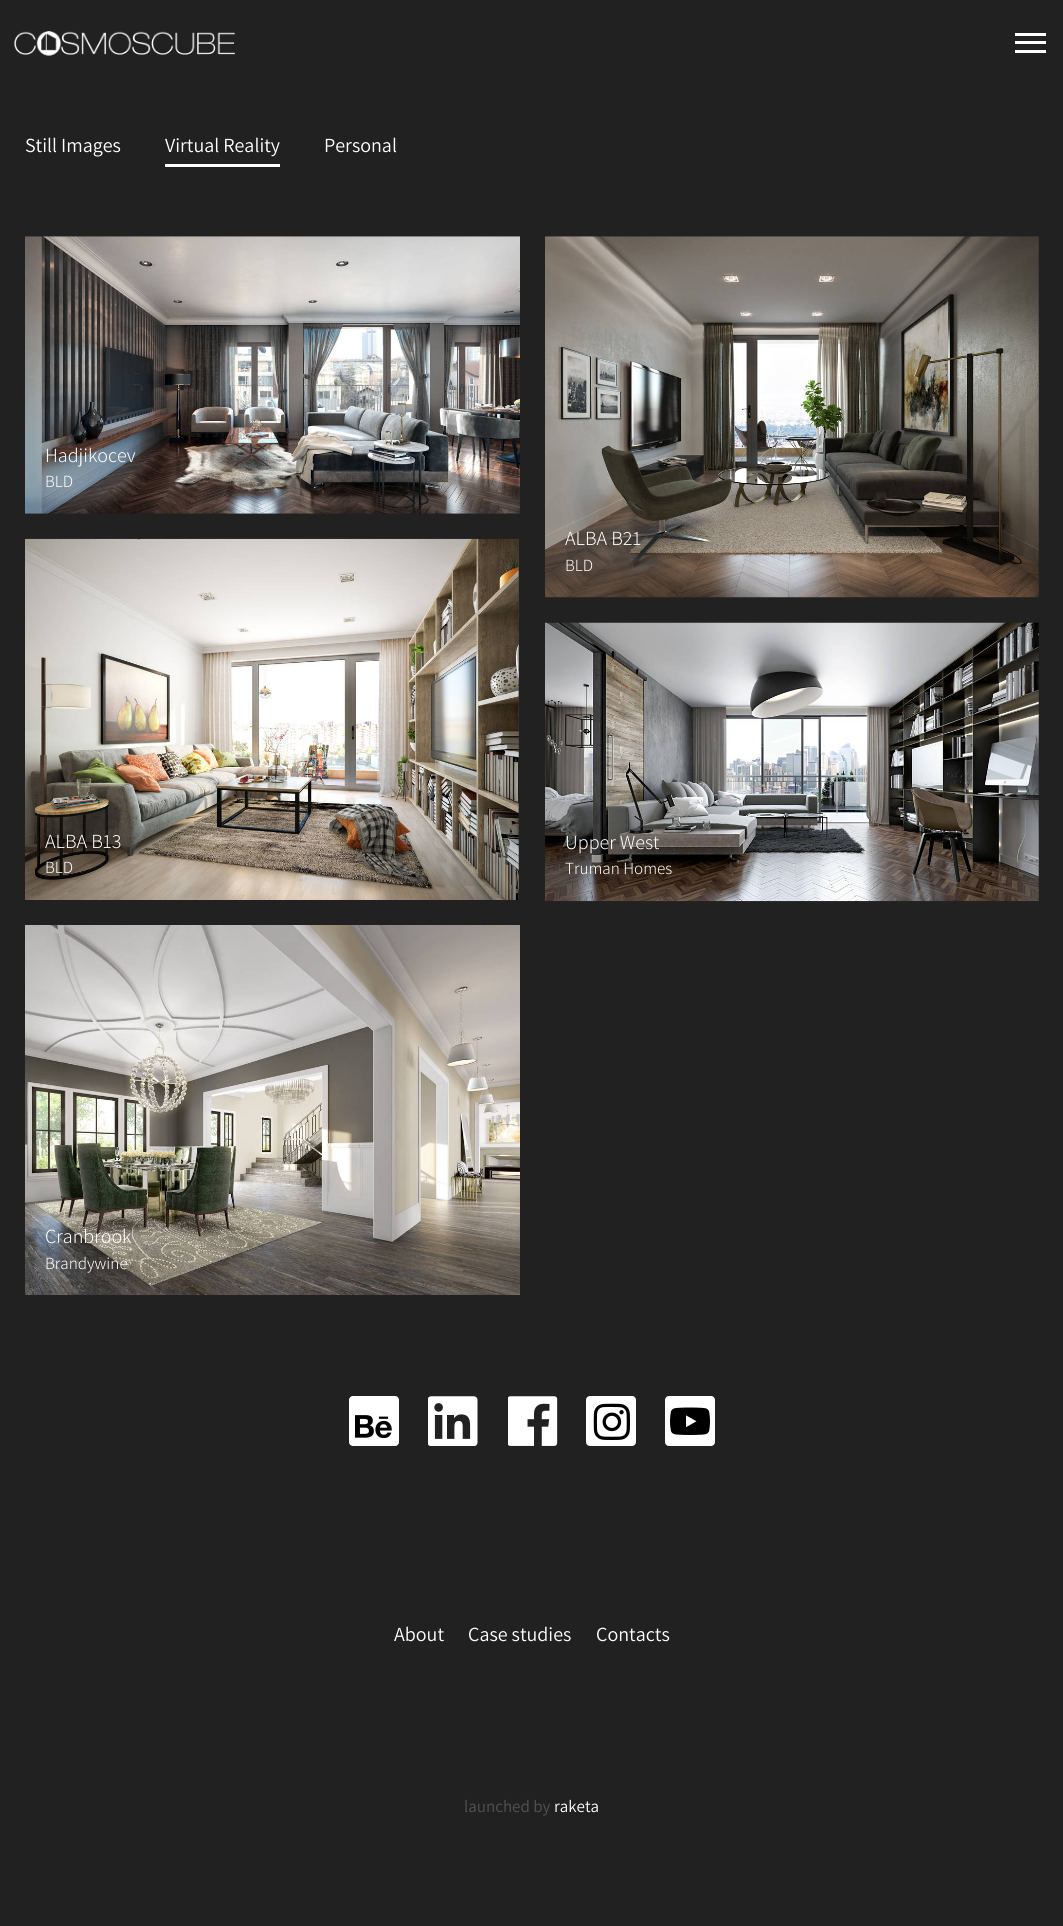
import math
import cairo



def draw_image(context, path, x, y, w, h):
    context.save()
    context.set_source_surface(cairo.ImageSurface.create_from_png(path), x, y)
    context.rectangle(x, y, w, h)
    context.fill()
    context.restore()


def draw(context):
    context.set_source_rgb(33 / 255, 33 / 255, 33 / 255)
    context.paint()
    draw_image(context, "images/1.png", 14, 31, 221, 25)
    context.set_source_rgb(1, 1, 1)
    context.rectangle(1015, 33, 31, 3)
    context.fill()
    context.rectangle(1015, 41, 31, 3)
    context.fill()
    context.rectangle(1015, 50, 31, 3)
    context.fill()
    context.rectangle(165, 164, 115, 3)
    context.fill()
    draw_image(context, "images/2.png", 25, 236, 495, 278)
    draw_image(context, "images/3.png", 545, 236, 494, 362)
    draw_image(context, "images/4.png", 25, 538, 494, 362)
    draw_image(context, "images/5.png", 545, 622, 494, 280)
    draw_image(context, "images/6.png", 25, 925, 495, 370)
    draw_image(context, "images/7.png", 349, 1396, 50, 50)
    draw_image(context, "images/8.png", 428, 1396, 50, 50)
    draw_image(context, "images/9.png", 508, 1396, 50, 50)
    draw_image(context, "images/10.png", 586, 1396, 50, 50)
    draw_image(context, "images/11.png", 665, 1396, 50, 50)
    context.select_font_face("Assistant")
    context.set_font_size(20)
    context.move_to(25, 152)
    context.show_text("Still Images")
    context.move_to(165, 152)
    context.show_text("Virtual Reality")
    context.move_to(324, 152)
    context.show_text("Personal")
    context.select_font_face("Assistant Light")
    context.move_to(45, 462)
    context.show_text("Hadjikocev")
    context.set_font_size(17)
    context.move_to(45, 487)
    context.show_text("BLD")
    context.set_font_size(20)
    context.move_to(565, 545)
    context.show_text("ALBA B21")
    context.set_font_size(17)
    context.move_to(565, 571)
    context.show_text("BLD")
    context.set_font_size(20)
    context.move_to(45, 848)
    context.show_text("ALBA B13")
    context.set_font_size(17)
    context.move_to(45, 873)
    context.show_text("BLD")
    context.set_font_size(20)
    context.move_to(565, 849)
    context.show_text("Upper West")
    context.set_font_size(17)
    context.move_to(565, 874)
    context.show_text("Truman Homes")
    context.set_font_size(20)
    context.move_to(45, 1243)
    context.show_text("Cranbrook")
    context.set_font_size(17)
    context.move_to(45, 1269)
    context.show_text("Brandywine")
    context.select_font_face("Assistant")
    context.set_font_size(20)
    context.move_to(394, 1641)
    context.show_text("About")
    context.move_to(468, 1641)
    context.show_text("Case studies")
    context.move_to(596, 1641)
    context.show_text("Contacts")
    context.set_font_size(17)
    context.set_source_rgb(83 / 255, 82 / 255, 81 / 255)
    context.move_to(464, 1812)
    context.show_text("launched by")
    context.set_source_rgb(1, 1, 1)
    context.move_to(554, 1812)
    context.show_text("raketa")


surface = cairo.ImageSurface(cairo.Format.RGB24, 1063, 1926)
context = cairo.Context(surface)
options = cairo.FontOptions()
options.set_hint_metrics(cairo.HintMetrics.OFF)
options.set_hint_style(cairo.HintStyle.NONE)
context.set_font_options(options)
context.set_miter_limit(4)
draw(context)
surface.write_to_png("out.png")
